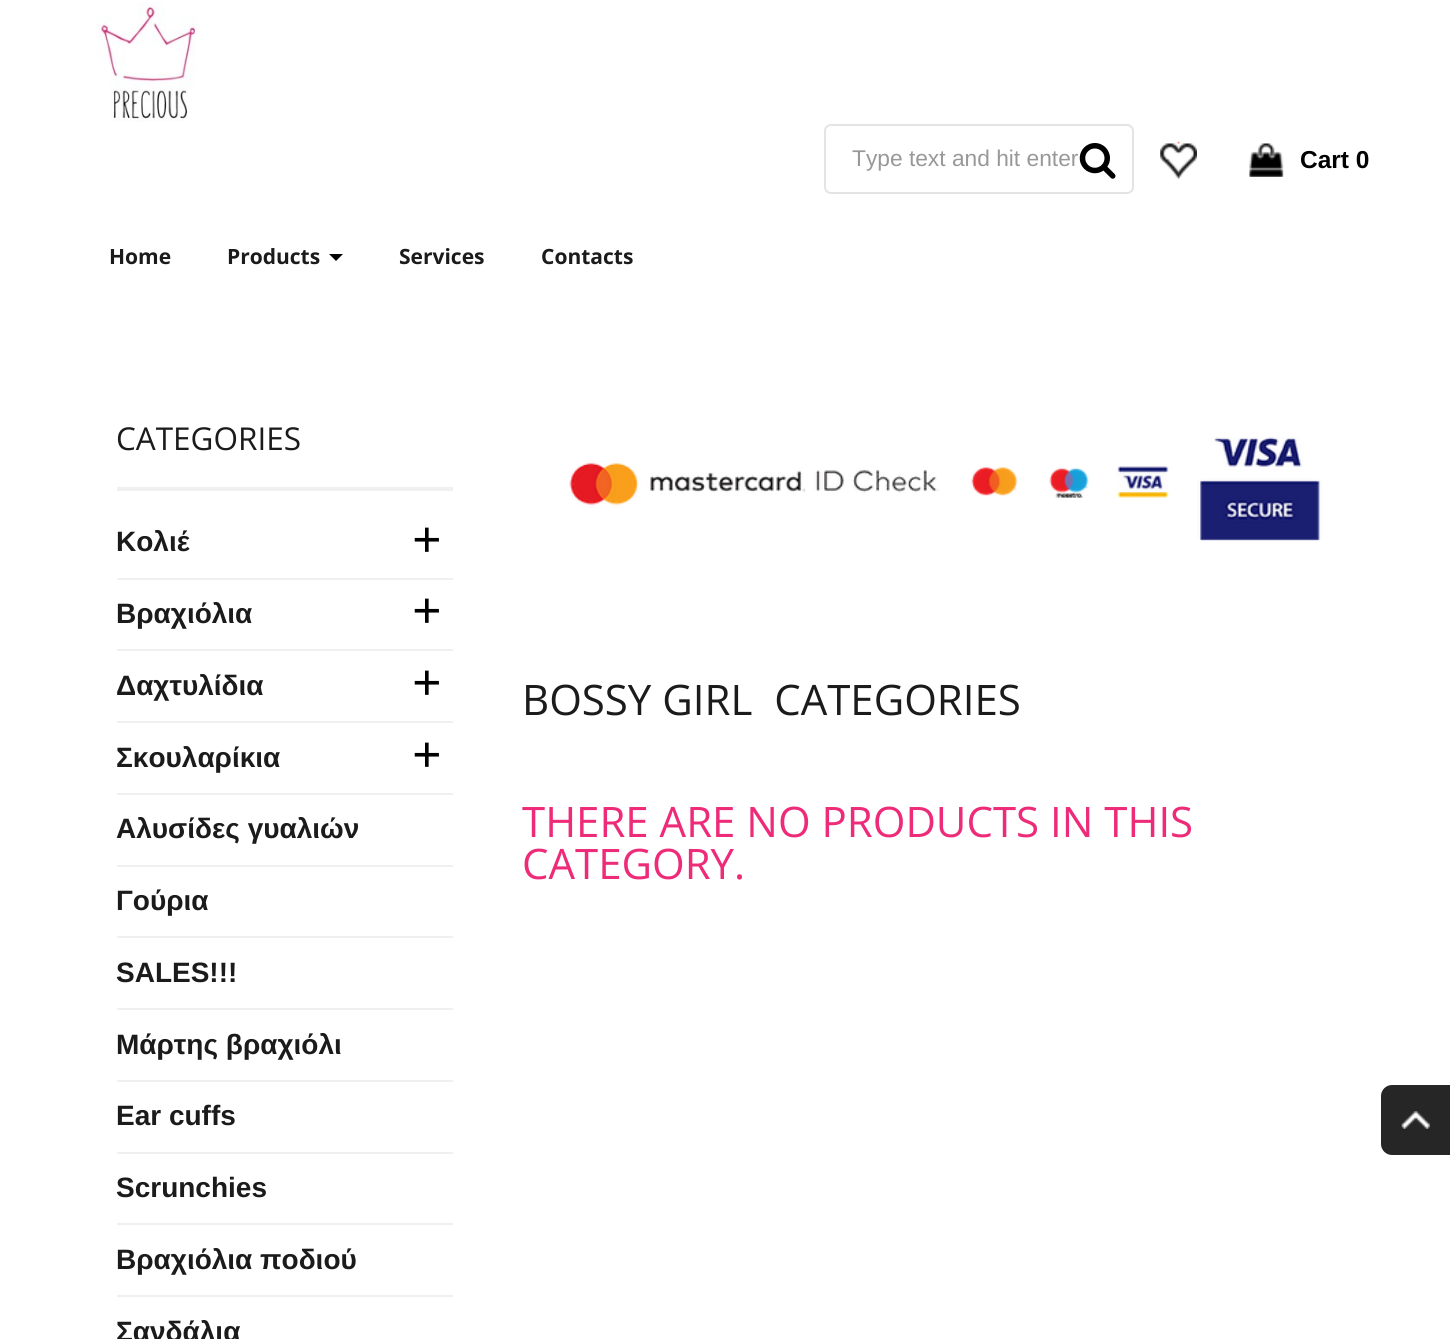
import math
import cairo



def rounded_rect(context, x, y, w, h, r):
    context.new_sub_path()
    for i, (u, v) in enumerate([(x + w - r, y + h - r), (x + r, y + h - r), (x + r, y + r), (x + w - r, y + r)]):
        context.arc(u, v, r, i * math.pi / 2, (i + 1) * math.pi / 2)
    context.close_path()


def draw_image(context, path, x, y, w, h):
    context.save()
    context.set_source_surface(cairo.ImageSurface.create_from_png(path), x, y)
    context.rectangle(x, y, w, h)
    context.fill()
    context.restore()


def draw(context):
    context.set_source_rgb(1, 1, 1)
    context.paint()
    draw_image(context, "images/1.png", 82, 2, 140, 120)
    rounded_rect(context, 825, 125, 308, 68, 6)
    context.set_source_rgb(228 / 255, 228 / 255, 226 / 255)
    context.stroke()
    draw_image(context, "images/2.png", 1079, 143, 37, 36)
    draw_image(context, "images/3.png", 1160, 141, 37, 38)
    draw_image(context, "images/4.png", 1249, 143, 35, 34)
    context.set_source_rgb(0, 0, 0)
    context.new_path()
    context.move_to(329, 254)
    context.line_to(343, 254)
    context.line_to(336, 261)
    context.close_path()
    context.fill()
    context.set_source_rgb(240 / 255, 240 / 255, 240 / 255)
    context.rectangle(117, 487, 336, 4)
    context.fill()
    context.rectangle(117, 578, 336, 2)
    context.fill()
    context.rectangle(117, 649, 336, 2)
    context.fill()
    context.rectangle(117, 721, 336, 2)
    context.fill()
    context.rectangle(117, 793, 336, 2)
    context.fill()
    context.rectangle(117, 865, 336, 2)
    context.fill()
    context.rectangle(117, 936, 336, 2)
    context.fill()
    context.rectangle(117, 1008, 336, 2)
    context.fill()
    context.rectangle(117, 1080, 336, 2)
    context.fill()
    context.rectangle(117, 1152, 336, 2)
    context.fill()
    context.rectangle(117, 1223, 336, 2)
    context.fill()
    context.rectangle(117, 1295, 336, 2)
    context.fill()
    draw_image(context, "images/5.png", 569, 437, 753, 104)
    context.set_source_rgb(38 / 255, 38 / 255, 38 / 255)
    context.new_path()
    context.move_to(1392, 1085)
    context.line_to(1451, 1085)
    context.line_to(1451, 1155)
    context.line_to(1392, 1155)
    context.curve_to(1386, 1155, 1381, 1150, 1381, 1144)
    context.line_to(1381, 1096)
    context.curve_to(1381, 1090, 1386, 1085, 1392, 1085)
    context.close_path()
    context.fill()
    draw_image(context, "images/6.png", 1401, 1111, 29, 18)
    context.select_font_face("Liberation Sans")
    context.set_font_size(22.75)
    context.set_source_rgb(153 / 255, 152 / 255, 152 / 255)
    context.move_to(852, 166)
    context.show_text("Type text and hit enter")
    context.select_font_face("Liberation Sans", cairo.FontSlant.NORMAL, cairo.FontWeight.BOLD)
    context.set_font_size(24.5)
    context.set_source_rgb(0, 0, 0)
    context.move_to(1300, 168)
    context.show_text("Cart 0")
    context.select_font_face("Open Sans", cairo.FontSlant.NORMAL, cairo.FontWeight.BOLD)
    context.set_font_size(21)
    context.set_source_rgb(27 / 255, 27 / 255, 27 / 255)
    context.move_to(109, 264)
    context.show_text("Home")
    context.move_to(227, 264)
    context.show_text("Products")
    context.move_to(399, 264)
    context.show_text("Services")
    context.move_to(541, 264)
    context.show_text("Contacts")
    context.select_font_face("Open Sans")
    context.set_font_size(31.5)
    context.move_to(116, 450)
    context.show_text("CATEGORIES")
    context.select_font_face("Liberation Sans", cairo.FontSlant.NORMAL, cairo.FontWeight.BOLD)
    context.set_font_size(28)
    context.move_to(116, 551)
    context.show_text("Κολιέ")
    context.select_font_face("Liberation Serif", cairo.FontSlant.NORMAL, cairo.FontWeight.BOLD)
    context.set_font_size(52)
    context.set_source_rgb(0, 0, 0)
    context.move_to(412, 557)
    context.show_text("+")
    context.select_font_face("Liberation Sans", cairo.FontSlant.NORMAL, cairo.FontWeight.BOLD)
    context.set_font_size(28)
    context.set_source_rgb(27 / 255, 27 / 255, 27 / 255)
    context.move_to(116, 623)
    context.show_text("Βραχιόλια")
    context.select_font_face("Liberation Serif", cairo.FontSlant.NORMAL, cairo.FontWeight.BOLD)
    context.set_font_size(52)
    context.set_source_rgb(0, 0, 0)
    context.move_to(412, 628)
    context.show_text("+")
    context.select_font_face("Liberation Sans", cairo.FontSlant.NORMAL, cairo.FontWeight.BOLD)
    context.set_font_size(28)
    context.set_source_rgb(27 / 255, 27 / 255, 27 / 255)
    context.move_to(116, 695)
    context.show_text("Δαχτυλίδια")
    context.select_font_face("Liberation Serif", cairo.FontSlant.NORMAL, cairo.FontWeight.BOLD)
    context.set_font_size(52)
    context.set_source_rgb(0, 0, 0)
    context.move_to(412, 700)
    context.show_text("+")
    context.select_font_face("Liberation Sans", cairo.FontSlant.NORMAL, cairo.FontWeight.BOLD)
    context.set_font_size(28)
    context.set_source_rgb(27 / 255, 27 / 255, 27 / 255)
    context.move_to(116, 767)
    context.show_text("Σκουλαρίκια")
    context.select_font_face("Liberation Serif", cairo.FontSlant.NORMAL, cairo.FontWeight.BOLD)
    context.set_font_size(52)
    context.set_source_rgb(0, 0, 0)
    context.move_to(412, 772)
    context.show_text("+")
    context.select_font_face("Liberation Sans", cairo.FontSlant.NORMAL, cairo.FontWeight.BOLD)
    context.set_font_size(28)
    context.set_source_rgb(27 / 255, 27 / 255, 27 / 255)
    context.move_to(116, 838)
    context.show_text("Αλυσίδες γυαλιών")
    context.move_to(116, 910)
    context.show_text("Γούρια")
    context.move_to(116, 982)
    context.show_text("SALES!!!")
    context.move_to(116, 1054)
    context.show_text("Μάρτης βραχιόλι")
    context.move_to(116, 1125)
    context.show_text("Ear cuffs")
    context.move_to(116, 1197)
    context.show_text("Scrunchies")
    context.move_to(116, 1269)
    context.show_text("Βραχιόλια ποδιού")
    context.move_to(116, 1341)
    context.show_text("Σανδάλια")
    context.select_font_face("Open Sans")
    context.set_font_size(42)
    context.move_to(522, 715)
    context.show_text("BOSSY GIRL  CATEGORIES")
    context.set_source_rgb(238 / 255, 43 / 255, 121 / 255)
    context.move_to(522, 837)
    context.show_text("THERE ARE NO PRODUCTS IN THIS")
    context.move_to(522, 879)
    context.show_text("CATEGORY.")


surface = cairo.ImageSurface(cairo.Format.RGB24, 1450, 1339)
context = cairo.Context(surface)
options = cairo.FontOptions()
options.set_hint_metrics(cairo.HintMetrics.OFF)
options.set_hint_style(cairo.HintStyle.NONE)
context.set_font_options(options)
context.set_miter_limit(4)
draw(context)
surface.write_to_png("out.png")
